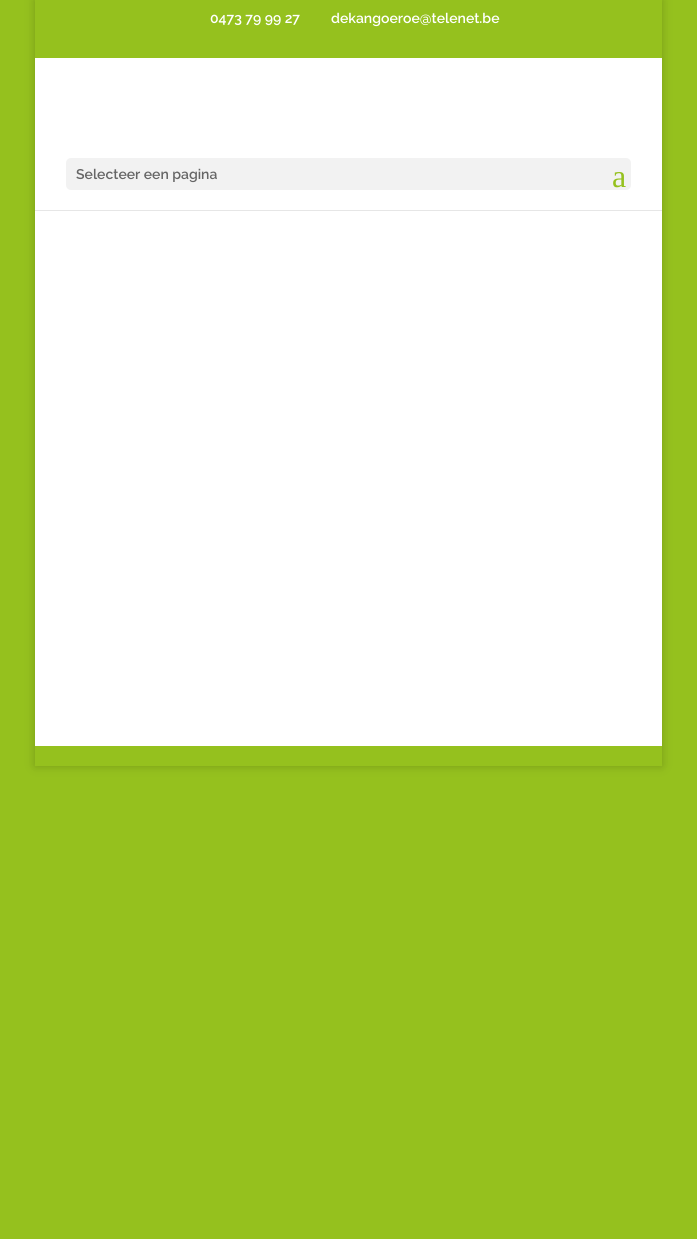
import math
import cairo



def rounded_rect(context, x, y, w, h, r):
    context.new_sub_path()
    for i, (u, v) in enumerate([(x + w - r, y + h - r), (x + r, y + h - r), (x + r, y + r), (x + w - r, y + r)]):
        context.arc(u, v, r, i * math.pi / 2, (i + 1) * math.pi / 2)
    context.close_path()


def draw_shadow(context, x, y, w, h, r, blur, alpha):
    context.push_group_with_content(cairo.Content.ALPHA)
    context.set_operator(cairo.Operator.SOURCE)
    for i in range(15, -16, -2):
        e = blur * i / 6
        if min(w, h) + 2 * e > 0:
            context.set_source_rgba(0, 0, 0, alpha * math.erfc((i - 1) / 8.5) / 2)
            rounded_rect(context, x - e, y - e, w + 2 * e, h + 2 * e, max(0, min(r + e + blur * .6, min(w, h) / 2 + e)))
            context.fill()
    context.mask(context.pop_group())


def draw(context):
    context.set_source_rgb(149 / 255, 193 / 255, 30 / 255)
    context.paint()
    context.save()
    context.set_fill_rule(cairo.FillRule.EVEN_ODD)
    context.new_path()
    context.move_to(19, 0)
    context.line_to(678, 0)
    context.line_to(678, 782)
    context.line_to(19, 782)
    context.close_path()
    context.move_to(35, 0)
    context.line_to(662, 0)
    context.line_to(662, 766)
    context.line_to(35, 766)
    context.close_path()
    context.clip()
    context.set_source_rgb(0, 0, 0)
    draw_shadow(context, 35, 0, 627, 766, 0, 5, 0.2)
    context.restore()
    context.set_source_rgb(230 / 255, 230 / 255, 230 / 255)
    context.rectangle(35, 210, 627, 1)
    context.fill()
    context.set_source_rgb(1, 1, 1)
    context.rectangle(35, 58, 627, 152)
    context.fill()
    context.set_source_rgb(242 / 255, 242 / 255, 242 / 255)
    rounded_rect(context, 66, 158, 565, 32, 5)
    context.fill()
    context.set_source_rgb(1, 1, 1)
    context.rectangle(35, 211, 627, 535)
    context.fill()
    context.select_font_face("Raleway SemiBold")
    context.set_font_size(14)
    context.move_to(210, 23)
    context.show_text("0473 79 99 27")
    context.move_to(331, 23)
    context.show_text("dekangoeroe@telenet.be")
    context.set_source_rgb(102 / 255, 102 / 255, 102 / 255)
    context.move_to(76, 179)
    context.show_text("Selecteer een pagina")
    context.select_font_face("Liberation Serif")
    context.set_font_size(32)
    context.set_source_rgb(149 / 255, 193 / 255, 30 / 255)
    context.move_to(612, 187)
    context.show_text("a")


surface = cairo.ImageSurface(cairo.Format.RGB24, 697, 1239)
context = cairo.Context(surface)
options = cairo.FontOptions()
options.set_hint_metrics(cairo.HintMetrics.OFF)
options.set_hint_style(cairo.HintStyle.NONE)
context.set_font_options(options)
context.set_miter_limit(4)
draw(context)
surface.write_to_png("out.png")
